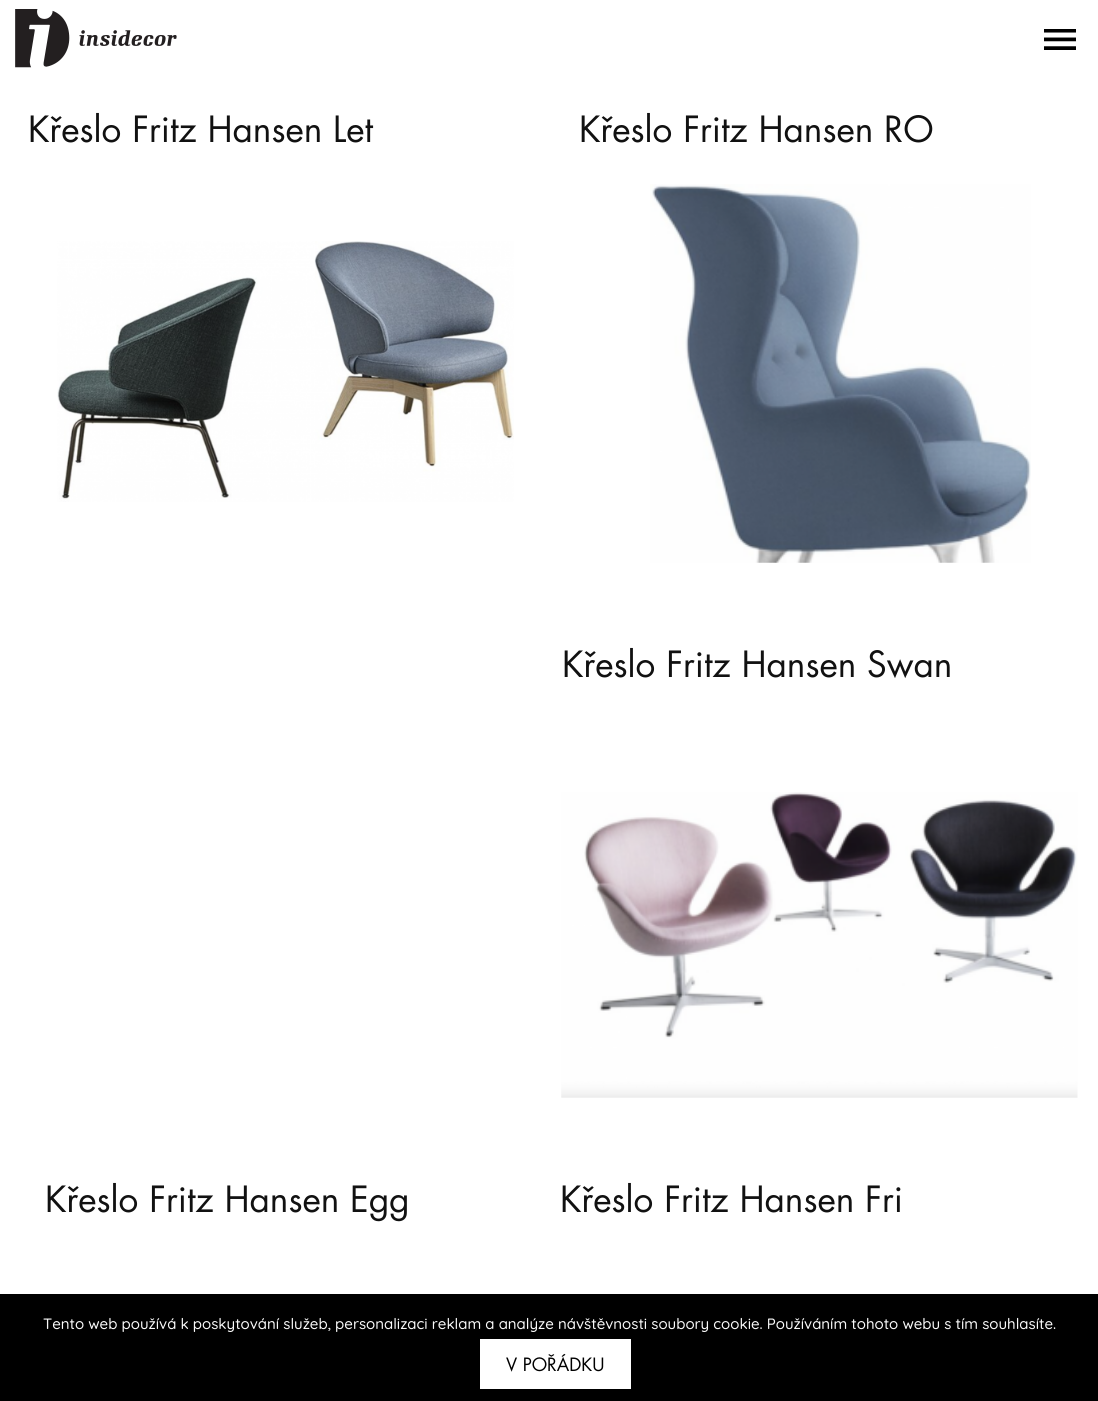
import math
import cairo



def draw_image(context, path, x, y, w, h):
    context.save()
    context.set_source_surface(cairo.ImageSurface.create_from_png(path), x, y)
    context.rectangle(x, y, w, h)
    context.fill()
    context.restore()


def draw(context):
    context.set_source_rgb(1, 1, 1)
    context.paint()
    draw_image(context, "images/1.png", 15, 9, 162, 59)
    draw_image(context, "images/2.png", 1044, 29, 32, 21)
    draw_image(context, "images/3.png", 57, 241, 457, 261)
    draw_image(context, "images/4.png", 650, 184, 381, 379)
    draw_image(context, "images/5.png", 561, 792, 517, 306)
    context.set_source_rgb(0, 0, 0)
    context.rectangle(0, 1294, 1098, 107)
    context.fill()
    context.set_source_rgb(1, 1, 1)
    context.rectangle(480, 1339, 151, 50)
    context.fill()
    context.select_font_face("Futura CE")
    context.set_font_size(32)
    context.set_source_rgb(17 / 255, 17 / 255, 17 / 255)
    context.move_to(28, 142)
    context.show_text("Křeslo Fritz Hansen Let")
    context.move_to(579, 142)
    context.show_text("Křeslo Fritz Hansen RO")
    context.move_to(562, 677)
    context.show_text("Křeslo Fritz Hansen Swan")
    context.move_to(45, 1212)
    context.show_text("Křeslo Fritz Hansen Egg")
    context.move_to(560, 1212)
    context.show_text("Křeslo Fritz Hansen Fri")
    context.select_font_face("Quicksand Medium")
    context.set_font_size(15)
    context.set_source_rgb(250 / 255, 250 / 255, 250 / 255)
    context.move_to(43, 1329)
    context.show_text("Tento web používá k poskytování služeb, personalizaci reklam a analýze návštěvnosti soubory cookie. Používáním tohoto webu s tím souhlasíte.")
    context.select_font_face("Futura CE")
    context.set_font_size(16.25)
    context.set_source_rgb(0, 0, 0)
    context.move_to(506, 1371)
    context.show_text("V POŘÁDKU")


surface = cairo.ImageSurface(cairo.Format.RGB24, 1098, 1401)
context = cairo.Context(surface)
options = cairo.FontOptions()
options.set_hint_metrics(cairo.HintMetrics.OFF)
options.set_hint_style(cairo.HintStyle.NONE)
context.set_font_options(options)
context.set_miter_limit(4)
draw(context)
surface.write_to_png("out.png")
